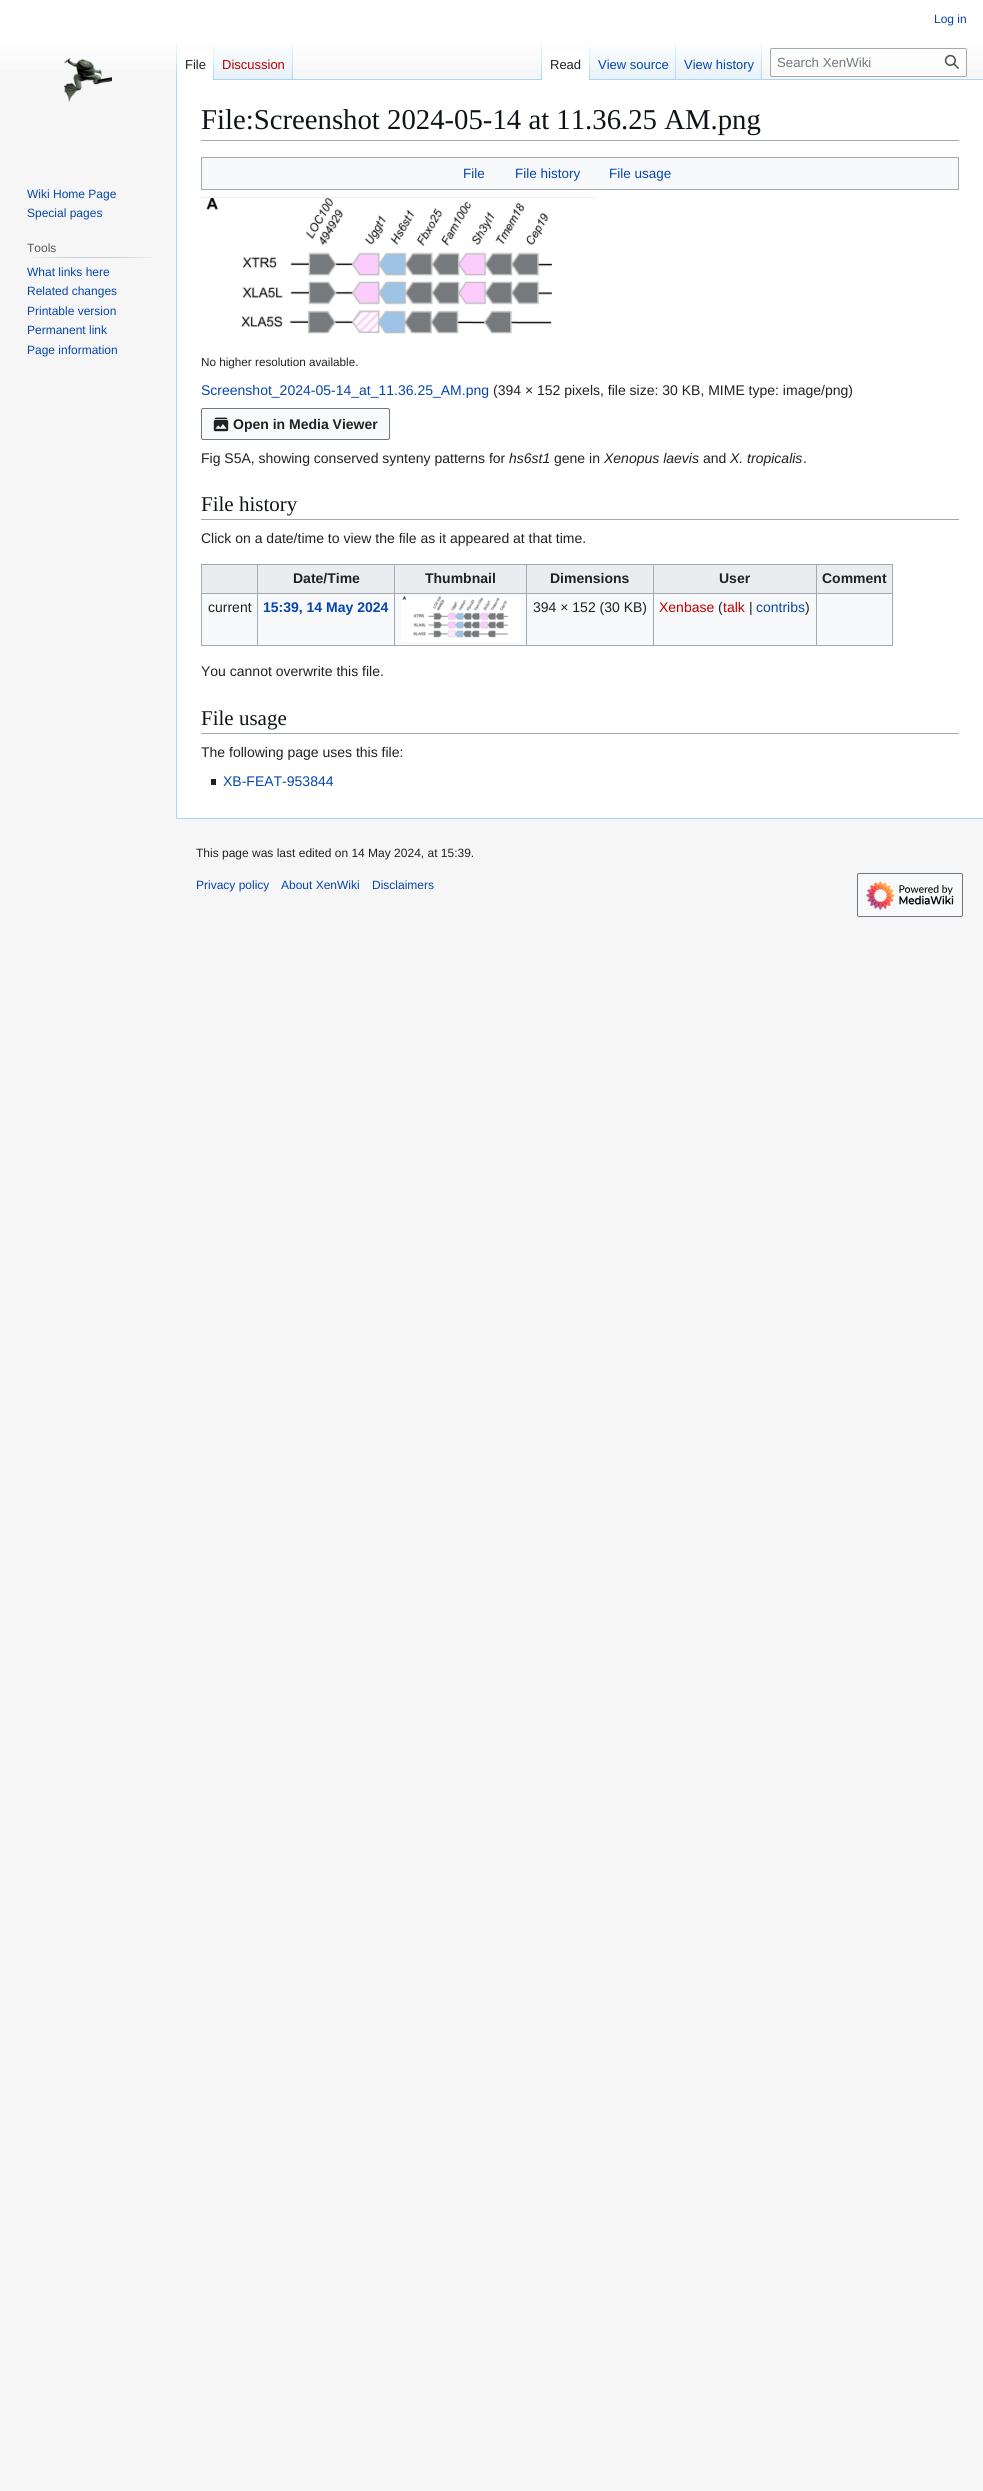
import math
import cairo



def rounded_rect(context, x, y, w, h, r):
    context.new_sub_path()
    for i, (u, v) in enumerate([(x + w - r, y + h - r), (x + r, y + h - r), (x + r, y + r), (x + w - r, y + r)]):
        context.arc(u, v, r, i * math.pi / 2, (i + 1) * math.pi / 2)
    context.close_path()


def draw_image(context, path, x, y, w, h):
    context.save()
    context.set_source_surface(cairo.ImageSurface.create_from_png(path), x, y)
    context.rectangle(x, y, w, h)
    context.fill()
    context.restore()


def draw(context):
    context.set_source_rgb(246 / 255, 246 / 255, 246 / 255)
    context.paint()
    gradient = cairo.LinearGradient(492, 0, 492, 80)
    gradient.add_color_stop_rgba(0.5, 1, 1, 1, 1)
    gradient.add_color_stop_rgba(1, 246 / 255, 246 / 255, 246 / 255, 1)
    context.set_source(gradient)
    context.rectangle(0, 0, 983, 69)
    context.fill()
    context.set_source_rgb(167 / 255, 215 / 255, 249 / 255)
    context.rectangle(176, 818, 807, 1)
    context.fill()
    context.rectangle(176, 79, 1, 740)
    context.fill()
    gradient = cairo.LinearGradient(177, 40, 177, 80)
    gradient.add_color_stop_rgba(0, 167 / 255, 215 / 255, 249 / 255, 0)
    gradient.add_color_stop_rgba(1, 167 / 255, 215 / 255, 249 / 255, 1)
    context.set_source(gradient)
    context.rectangle(176, 40, 1, 40)
    context.fill()
    context.set_source_rgb(1, 1, 1)
    context.rectangle(177, 51, 36, 29)
    context.fill()
    gradient = cairo.LinearGradient(214, 40, 214, 80)
    gradient.add_color_stop_rgba(0, 1, 1, 1, 1)
    gradient.add_color_stop_rgba(1, 167 / 255, 215 / 255, 249 / 255, 1)
    context.set_source(gradient)
    context.rectangle(213, 40, 1, 40)
    context.fill()
    gradient = cairo.LinearGradient(254, 80, 254, 40)
    gradient.add_color_stop_rgba(0, 119 / 255, 193 / 255, 246 / 255, 1)
    gradient.add_color_stop_rgba(0.03, 232 / 255, 242 / 255, 248 / 255, 1)
    gradient.add_color_stop_rgba(1, 1, 1, 1, 1)
    context.set_source(gradient)
    context.rectangle(214, 46, 79, 34)
    context.fill()
    gradient = cairo.LinearGradient(293, 40, 293, 80)
    gradient.add_color_stop_rgba(0, 167 / 255, 215 / 255, 249 / 255, 0)
    gradient.add_color_stop_rgba(1, 167 / 255, 215 / 255, 249 / 255, 1)
    context.set_source(gradient)
    context.rectangle(292, 40, 1, 40)
    context.fill()
    context.set_source_rgb(167 / 255, 215 / 255, 249 / 255)
    context.rectangle(293, 79, 690, 1)
    context.fill()
    gradient = cairo.LinearGradient(542, 40, 542, 80)
    gradient.add_color_stop_rgba(0, 167 / 255, 215 / 255, 249 / 255, 0)
    gradient.add_color_stop_rgba(1, 167 / 255, 215 / 255, 249 / 255, 1)
    context.set_source(gradient)
    context.rectangle(541, 40, 1, 40)
    context.fill()
    context.set_source_rgb(1, 1, 1)
    context.rectangle(542, 51, 47, 29)
    context.fill()
    gradient = cairo.LinearGradient(590, 40, 590, 80)
    gradient.add_color_stop_rgba(0, 1, 1, 1, 1)
    gradient.add_color_stop_rgba(1, 167 / 255, 215 / 255, 249 / 255, 1)
    context.set_source(gradient)
    context.rectangle(589, 40, 1, 40)
    context.fill()
    gradient = cairo.LinearGradient(633, 80, 633, 40)
    gradient.add_color_stop_rgba(0, 119 / 255, 193 / 255, 246 / 255, 1)
    gradient.add_color_stop_rgba(0.03, 232 / 255, 242 / 255, 248 / 255, 1)
    gradient.add_color_stop_rgba(1, 1, 1, 1, 1)
    context.set_source(gradient)
    context.rectangle(590, 46, 86, 33)
    context.fill()
    gradient = cairo.LinearGradient(676, 40, 676, 80)
    gradient.add_color_stop_rgba(0, 167 / 255, 215 / 255, 249 / 255, 0)
    gradient.add_color_stop_rgba(1, 167 / 255, 215 / 255, 249 / 255, 1)
    context.set_source(gradient)
    context.rectangle(675, 40, 1, 40)
    context.fill()
    gradient = cairo.LinearGradient(719, 80, 719, 40)
    gradient.add_color_stop_rgba(0, 119 / 255, 193 / 255, 246 / 255, 1)
    gradient.add_color_stop_rgba(0.03, 232 / 255, 242 / 255, 248 / 255, 1)
    gradient.add_color_stop_rgba(1, 1, 1, 1, 1)
    context.set_source(gradient)
    context.rectangle(676, 46, 86, 33)
    context.fill()
    gradient = cairo.LinearGradient(762, 40, 762, 80)
    gradient.add_color_stop_rgba(0, 167 / 255, 215 / 255, 249 / 255, 0)
    gradient.add_color_stop_rgba(1, 167 / 255, 215 / 255, 249 / 255, 1)
    context.set_source(gradient)
    context.rectangle(761, 40, 1, 40)
    context.fill()
    context.set_source_rgba(1, 1, 1, 0.5)
    rounded_rect(context, 770.5, 48.5, 196, 28, 1.5)
    context.fill_preserve()
    context.set_source_rgb(162 / 255, 169 / 255, 177 / 255)
    context.set_line_width(1)
    context.stroke()
    draw_image(context, "images/1.png", 944, 54, 15, 15)
    draw_image(context, "images/2.png", 64, 58, 48, 44)
    gradient = cairo.LinearGradient(27, 258, 158, 258)
    gradient.add_color_stop_rgba(0, 246 / 255, 246 / 255, 246 / 255, 1)
    gradient.add_color_stop_rgba(0.33, 200 / 255, 204 / 255, 209 / 255, 1)
    gradient.add_color_stop_rgba(0.66, 200 / 255, 204 / 255, 209 / 255, 1)
    gradient.add_color_stop_rgba(1, 246 / 255, 246 / 255, 246 / 255, 1)
    context.set_source(gradient)
    context.rectangle(27, 257, 131, 1)
    context.fill()
    context.set_source_rgb(1, 1, 1)
    context.rectangle(177, 80, 806, 738)
    context.fill()
    context.set_source_rgb(162 / 255, 169 / 255, 177 / 255)
    context.rectangle(201, 140, 758, 1)
    context.fill()
    context.set_source_rgb(248 / 255, 249 / 255, 250 / 255)
    context.rectangle(201.5, 157.5, 757, 32)
    context.fill_preserve()
    context.set_source_rgb(162 / 255, 169 / 255, 177 / 255)
    context.stroke()
    draw_image(context, "images/3.png", 201, 197, 394, 137)
    context.set_source_rgb(248 / 255, 249 / 255, 250 / 255)
    rounded_rect(context, 201.5, 408.5, 188, 31, 1.5)
    context.fill_preserve()
    context.set_source_rgb(114 / 255, 119 / 255, 125 / 255)
    context.stroke()
    draw_image(context, "images/4.png", 213, 417, 16, 15)
    context.set_source_rgb(162 / 255, 169 / 255, 177 / 255)
    context.rectangle(201, 519, 758, 1)
    context.fill()
    context.set_source_rgb(248 / 255, 249 / 255, 250 / 255)
    context.rectangle(202, 594, 690, 51)
    context.fill()
    context.set_source_rgb(162 / 255, 169 / 255, 177 / 255)
    context.rectangle(201, 564, 692, 1)
    context.fill()
    context.rectangle(892, 564, 1, 82)
    context.fill()
    context.rectangle(201, 645, 692, 1)
    context.fill()
    context.rectangle(201, 564, 1, 82)
    context.fill()
    context.set_source_rgb(234 / 255, 236 / 255, 240 / 255)
    context.rectangle(202, 565, 55, 28)
    context.fill()
    context.rectangle(258, 565, 136, 28)
    context.fill()
    context.set_source_rgb(162 / 255, 169 / 255, 177 / 255)
    context.rectangle(816, 593, 77, 1)
    context.fill()
    context.rectangle(816, 593, 1, 53)
    context.fill()
    context.rectangle(653, 593, 164, 1)
    context.fill()
    context.rectangle(653, 593, 1, 53)
    context.fill()
    context.rectangle(526, 593, 128, 1)
    context.fill()
    context.rectangle(526, 593, 1, 53)
    context.fill()
    context.rectangle(394, 593, 133, 1)
    context.fill()
    context.rectangle(394, 593, 1, 53)
    context.fill()
    context.rectangle(257, 593, 138, 1)
    context.fill()
    context.rectangle(257, 593, 1, 53)
    context.fill()
    context.rectangle(201, 593, 57, 1)
    context.fill()
    context.rectangle(257, 564, 1, 30)
    context.fill()
    context.set_source_rgb(234 / 255, 236 / 255, 240 / 255)
    context.rectangle(395, 565, 131, 28)
    context.fill()
    context.set_source_rgb(162 / 255, 169 / 255, 177 / 255)
    context.rectangle(394, 564, 1, 30)
    context.fill()
    context.set_source_rgb(234 / 255, 236 / 255, 240 / 255)
    context.rectangle(527, 565, 126, 28)
    context.fill()
    context.set_source_rgb(162 / 255, 169 / 255, 177 / 255)
    context.rectangle(526, 564, 1, 30)
    context.fill()
    context.set_source_rgb(234 / 255, 236 / 255, 240 / 255)
    context.rectangle(654, 565, 162, 28)
    context.fill()
    context.set_source_rgb(162 / 255, 169 / 255, 177 / 255)
    context.rectangle(653, 564, 1, 30)
    context.fill()
    context.set_source_rgb(234 / 255, 236 / 255, 240 / 255)
    context.rectangle(817, 565, 75, 28)
    context.fill()
    context.set_source_rgb(162 / 255, 169 / 255, 177 / 255)
    context.rectangle(816, 564, 1, 30)
    context.fill()
    draw_image(context, "images/5.png", 401, 596, 120, 46)
    context.rectangle(201, 733, 758, 1)
    context.fill()
    context.set_source_rgb(32 / 255, 33 / 255, 34 / 255)
    context.rectangle(211, 779, 5, 6)
    context.fill()
    context.set_source_rgb(248 / 255, 249 / 255, 250 / 255)
    rounded_rect(context, 857.5, 873.5, 105, 43, 1.5)
    context.fill_preserve()
    context.set_source_rgb(114 / 255, 119 / 255, 125 / 255)
    context.stroke()
    draw_image(context, "images/6.png", 866, 881, 88, 29)
    context.select_font_face("Liberation Sans")
    context.set_font_size(12)
    context.set_source_rgb(6 / 255, 69 / 255, 173 / 255)
    context.move_to(934, 23)
    context.show_text("Log in")
    context.set_font_size(13)
    context.set_source_rgb(32 / 255, 33 / 255, 34 / 255)
    context.move_to(185, 69)
    context.show_text("File")
    context.set_source_rgb(186 / 255, 0, 0)
    context.move_to(222, 69)
    context.show_text("Discussion")
    context.set_source_rgb(32 / 255, 33 / 255, 34 / 255)
    context.move_to(550, 69)
    context.show_text("Read")
    context.set_source_rgb(6 / 255, 69 / 255, 173 / 255)
    context.move_to(598, 69)
    context.show_text("View source")
    context.move_to(684, 69)
    context.show_text("View history")
    context.set_font_size(13.25)
    context.set_source_rgb(114 / 255, 119 / 255, 125 / 255)
    context.move_to(777, 67)
    context.show_text("Search XenWiki")
    context.set_font_size(12)
    context.set_source_rgb(6 / 255, 69 / 255, 173 / 255)
    context.move_to(27, 198)
    context.show_text("Wiki Home Page")
    context.move_to(27, 217)
    context.show_text("Special pages")
    context.set_source_rgb(84 / 255, 89 / 255, 93 / 255)
    context.move_to(27, 252)
    context.show_text("Tools")
    context.set_source_rgb(6 / 255, 69 / 255, 173 / 255)
    context.move_to(27, 276)
    context.show_text("What links here")
    context.move_to(27, 295)
    context.show_text("Related changes")
    context.move_to(27, 315)
    context.show_text("Printable version")
    context.move_to(27, 334)
    context.show_text("Permanent link")
    context.move_to(27, 354)
    context.show_text("Page information")
    context.select_font_face("Liberation Serif")
    context.set_font_size(28.75)
    context.set_source_rgb(16 / 255, 20 / 255, 24 / 255)
    context.move_to(201, 129)
    context.show_text("File:Screenshot 2024-05-14 at 11.36.25 AM.png")
    context.select_font_face("Liberation Sans")
    context.set_font_size(13.5)
    context.set_source_rgb(6 / 255, 69 / 255, 173 / 255)
    context.move_to(463, 178)
    context.show_text("File")
    context.move_to(515, 178)
    context.show_text("File history")
    context.move_to(609, 178)
    context.show_text("File usage")
    context.set_font_size(11.7)
    context.set_source_rgb(32 / 255, 33 / 255, 34 / 255)
    context.move_to(201, 366)
    context.show_text("No higher resolution available.")
    context.set_font_size(14)
    context.set_source_rgb(6 / 255, 69 / 255, 173 / 255)
    context.move_to(201, 395)
    context.show_text("Screenshot_2024-05-14_at_11.36.25_AM.png")
    context.set_source_rgb(32 / 255, 33 / 255, 34 / 255)
    context.move_to(493, 395)
    context.show_text("(394 × 152 pixels, file size: 30 KB, MIME type: image/png)")
    context.select_font_face("Liberation Sans", cairo.FontSlant.NORMAL, cairo.FontWeight.BOLD)
    context.move_to(233, 429)
    context.show_text("Open in Media Viewer")
    context.select_font_face("Liberation Sans")
    context.move_to(201, 463)
    context.show_text("Fig S5A, showing conserved synteny patterns for")
    context.select_font_face("Liberation Sans", cairo.FontSlant.ITALIC)
    context.move_to(509, 463)
    context.show_text("hs6st1")
    context.select_font_face("Liberation Sans")
    context.move_to(554, 463)
    context.show_text("gene in")
    context.select_font_face("Liberation Sans", cairo.FontSlant.ITALIC)
    context.move_to(604, 463)
    context.show_text("Xenopus laevis")
    context.select_font_face("Liberation Sans")
    context.move_to(703, 463)
    context.show_text("and")
    context.select_font_face("Liberation Sans", cairo.FontSlant.ITALIC)
    context.move_to(730, 463)
    context.show_text("X. tropicalis")
    context.select_font_face("Liberation Sans")
    context.move_to(803, 463)
    context.show_text(".")
    context.select_font_face("Liberation Serif")
    context.set_font_size(21)
    context.set_source_rgb(16 / 255, 20 / 255, 24 / 255)
    context.move_to(201, 511)
    context.show_text("File history")
    context.select_font_face("Liberation Sans")
    context.set_font_size(14)
    context.set_source_rgb(32 / 255, 33 / 255, 34 / 255)
    context.move_to(201, 543)
    context.show_text("Click on a date/time to view the file as it appeared at that time.")
    context.select_font_face("Liberation Sans", cairo.FontSlant.NORMAL, cairo.FontWeight.BOLD)
    context.move_to(293, 583)
    context.show_text("Date/Time")
    context.move_to(425, 583)
    context.show_text("Thumbnail")
    context.move_to(550, 583)
    context.show_text("Dimensions")
    context.move_to(719, 583)
    context.show_text("User")
    context.move_to(822, 583)
    context.show_text("Comment")
    context.select_font_face("Liberation Sans")
    context.move_to(208, 612)
    context.show_text("current")
    context.select_font_face("Liberation Sans", cairo.FontSlant.NORMAL, cairo.FontWeight.BOLD)
    context.set_source_rgb(6 / 255, 69 / 255, 173 / 255)
    context.move_to(263, 612)
    context.show_text("15:39, 14 May 2024")
    context.select_font_face("Liberation Sans")
    context.set_source_rgb(32 / 255, 33 / 255, 34 / 255)
    context.move_to(533, 612)
    context.show_text("394 × 152 (30 KB)")
    context.set_source_rgb(186 / 255, 0, 0)
    context.move_to(659, 612)
    context.show_text("Xenbase")
    context.set_source_rgb(32 / 255, 33 / 255, 34 / 255)
    context.move_to(718, 612)
    context.show_text("(")
    context.set_source_rgb(186 / 255, 0, 0)
    context.move_to(723, 612)
    context.show_text("talk")
    context.set_source_rgb(32 / 255, 33 / 255, 34 / 255)
    context.move_to(749, 612)
    context.show_text("|")
    context.set_source_rgb(6 / 255, 69 / 255, 173 / 255)
    context.move_to(756, 612)
    context.show_text("contribs")
    context.set_source_rgb(32 / 255, 33 / 255, 34 / 255)
    context.move_to(805, 612)
    context.show_text(")")
    context.move_to(201, 676)
    context.show_text("You cannot overwrite this file.")
    context.select_font_face("Liberation Serif")
    context.set_font_size(21)
    context.set_source_rgb(16 / 255, 20 / 255, 24 / 255)
    context.move_to(201, 725)
    context.show_text("File usage")
    context.select_font_face("Liberation Sans")
    context.set_font_size(14)
    context.set_source_rgb(32 / 255, 33 / 255, 34 / 255)
    context.move_to(201, 757)
    context.show_text("The following page uses this file:")
    context.set_source_rgb(6 / 255, 69 / 255, 173 / 255)
    context.move_to(223, 786)
    context.show_text("XB-FEAT-953844")
    context.set_font_size(12)
    context.set_source_rgb(32 / 255, 33 / 255, 34 / 255)
    context.move_to(196, 857)
    context.show_text("This page was last edited on 14 May 2024, at 15:39.")
    context.set_source_rgb(6 / 255, 69 / 255, 173 / 255)
    context.move_to(196, 889)
    context.show_text("Privacy policy")
    context.move_to(281, 889)
    context.show_text("About XenWiki")
    context.move_to(372, 889)
    context.show_text("Disclaimers")


surface = cairo.ImageSurface(cairo.Format.RGB24, 983, 2491)
context = cairo.Context(surface)
options = cairo.FontOptions()
options.set_hint_metrics(cairo.HintMetrics.OFF)
options.set_hint_style(cairo.HintStyle.NONE)
context.set_font_options(options)
context.set_miter_limit(4)
draw(context)
surface.write_to_png("out.png")
